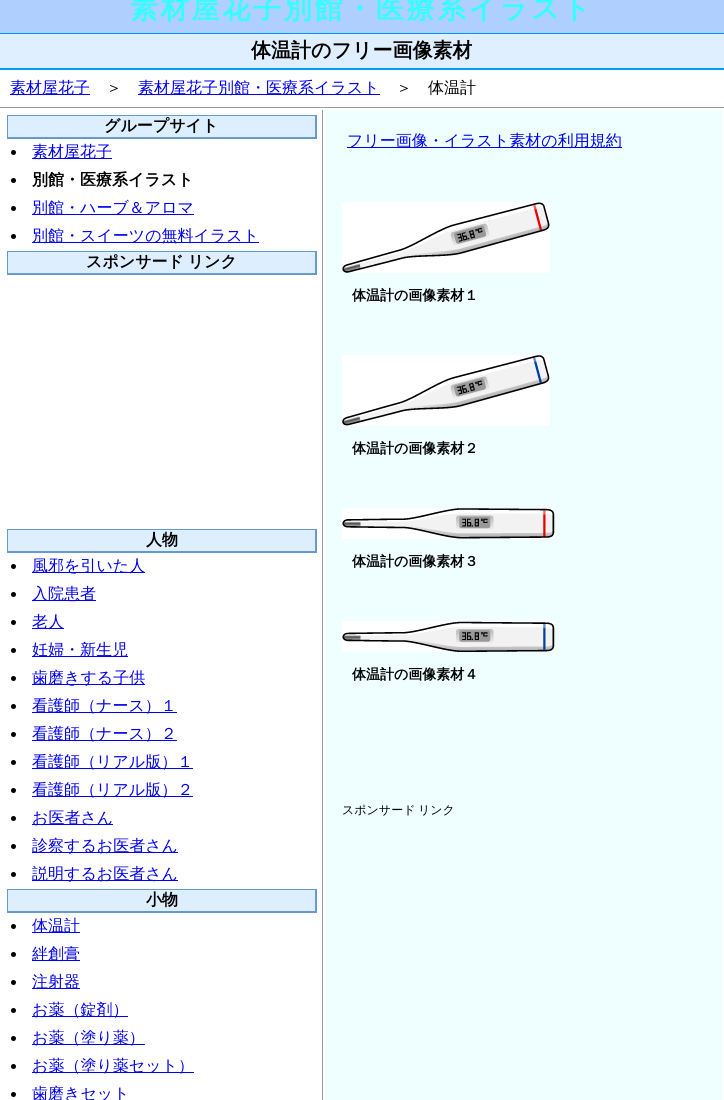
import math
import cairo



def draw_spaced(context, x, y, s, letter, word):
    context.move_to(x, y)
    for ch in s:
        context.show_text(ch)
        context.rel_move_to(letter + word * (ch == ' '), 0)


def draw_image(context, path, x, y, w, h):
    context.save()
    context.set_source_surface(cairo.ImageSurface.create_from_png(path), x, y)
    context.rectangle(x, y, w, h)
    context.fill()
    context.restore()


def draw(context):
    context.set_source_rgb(1, 1, 1)
    context.paint()
    context.set_source_rgb(175 / 255, 207 / 255, 1)
    context.rectangle(0, 0, 724, 33)
    context.fill()
    context.set_source_rgb(0, 153 / 255, 1)
    context.rectangle(0, 33, 724, 1)
    context.fill()
    context.set_source_rgb(223 / 255, 239 / 255, 1)
    context.rectangle(0, 34, 724, 34)
    context.fill()
    context.set_source_rgb(0, 153 / 255, 1)
    context.rectangle(0, 68, 724, 2)
    context.fill()
    context.set_source_rgb(153 / 255, 153 / 255, 153 / 255)
    context.rectangle(0, 107, 724, 1)
    context.fill()
    context.set_source_rgb(0, 0, 238 / 255)
    context.rectangle(10, 94, 80, 1)
    context.fill()
    context.rectangle(138, 94, 242, 1)
    context.fill()
    context.set_source_rgb(153 / 255, 153 / 255, 153 / 255)
    context.rectangle(322, 110, 1, 990)
    context.fill()
    context.set_source_rgb(221 / 255, 238 / 255, 1)
    context.rectangle(8, 116, 307, 21)
    context.fill()
    context.set_source_rgb(102 / 255, 153 / 255, 204 / 255)
    context.rectangle(7, 115, 310, 1)
    context.fill()
    context.rectangle(315, 115, 2, 24)
    context.fill()
    context.rectangle(7, 137, 310, 2)
    context.fill()
    context.rectangle(7, 115, 1, 24)
    context.fill()
    context.set_source_rgb(0, 0, 0)
    context.arc(13.5, 152.5, 2.5, 0, 2 * math.pi)
    context.fill()
    context.set_source_rgb(0, 0, 238 / 255)
    context.rectangle(32, 158, 80, 1)
    context.fill()
    context.set_source_rgb(0, 0, 0)
    context.arc(13.5, 180.5, 2.5, 0, 2 * math.pi)
    context.fill()
    context.arc(13.5, 208.5, 2.5, 0, 2 * math.pi)
    context.fill()
    context.set_source_rgb(0, 0, 238 / 255)
    context.rectangle(32, 214, 162, 1)
    context.fill()
    context.set_source_rgb(0, 0, 0)
    context.arc(13.5, 236.5, 2.5, 0, 2 * math.pi)
    context.fill()
    context.set_source_rgb(0, 0, 238 / 255)
    context.rectangle(32, 242, 227, 1)
    context.fill()
    context.set_source_rgb(221 / 255, 238 / 255, 1)
    context.rectangle(8, 252, 307, 21)
    context.fill()
    context.set_source_rgb(102 / 255, 153 / 255, 204 / 255)
    context.rectangle(7, 251, 310, 1)
    context.fill()
    context.rectangle(315, 251, 2, 24)
    context.fill()
    context.rectangle(7, 273, 310, 2)
    context.fill()
    context.rectangle(7, 251, 1, 24)
    context.fill()
    context.set_source_rgb(221 / 255, 238 / 255, 1)
    context.rectangle(8, 530, 307, 21)
    context.fill()
    context.set_source_rgb(102 / 255, 153 / 255, 204 / 255)
    context.rectangle(7, 529, 310, 1)
    context.fill()
    context.rectangle(315, 529, 2, 24)
    context.fill()
    context.rectangle(7, 551, 310, 2)
    context.fill()
    context.rectangle(7, 529, 1, 24)
    context.fill()
    context.set_source_rgb(0, 0, 0)
    context.arc(13.5, 566.5, 2.5, 0, 2 * math.pi)
    context.fill()
    context.set_source_rgb(0, 0, 238 / 255)
    context.rectangle(32, 572, 113, 1)
    context.fill()
    context.set_source_rgb(0, 0, 0)
    context.arc(13.5, 594.5, 2.5, 0, 2 * math.pi)
    context.fill()
    context.set_source_rgb(0, 0, 238 / 255)
    context.rectangle(32, 600, 64, 1)
    context.fill()
    context.set_source_rgb(0, 0, 0)
    context.arc(13.5, 622.5, 2.5, 0, 2 * math.pi)
    context.fill()
    context.set_source_rgb(0, 0, 238 / 255)
    context.rectangle(32, 628, 32, 1)
    context.fill()
    context.set_source_rgb(0, 0, 0)
    context.arc(13.5, 650.5, 2.5, 0, 2 * math.pi)
    context.fill()
    context.set_source_rgb(0, 0, 238 / 255)
    context.rectangle(32, 656, 96, 1)
    context.fill()
    context.set_source_rgb(0, 0, 0)
    context.arc(13.5, 678.5, 2.5, 0, 2 * math.pi)
    context.fill()
    context.set_source_rgb(0, 0, 238 / 255)
    context.rectangle(32, 684, 113, 1)
    context.fill()
    context.set_source_rgb(0, 0, 0)
    context.arc(13.5, 706.5, 2.5, 0, 2 * math.pi)
    context.fill()
    context.set_source_rgb(0, 0, 238 / 255)
    context.rectangle(32, 712, 145, 1)
    context.fill()
    context.set_source_rgb(0, 0, 0)
    context.arc(13.5, 734.5, 2.5, 0, 2 * math.pi)
    context.fill()
    context.set_source_rgb(0, 0, 238 / 255)
    context.rectangle(32, 740, 145, 1)
    context.fill()
    context.set_source_rgb(0, 0, 0)
    context.arc(13.5, 762.5, 2.5, 0, 2 * math.pi)
    context.fill()
    context.set_source_rgb(0, 0, 238 / 255)
    context.rectangle(32, 768, 161, 1)
    context.fill()
    context.set_source_rgb(0, 0, 0)
    context.arc(13.5, 790.5, 2.5, 0, 2 * math.pi)
    context.fill()
    context.set_source_rgb(0, 0, 238 / 255)
    context.rectangle(32, 796, 161, 1)
    context.fill()
    context.set_source_rgb(0, 0, 0)
    context.arc(13.5, 818.5, 2.5, 0, 2 * math.pi)
    context.fill()
    context.set_source_rgb(0, 0, 238 / 255)
    context.rectangle(32, 824, 81, 1)
    context.fill()
    context.set_source_rgb(0, 0, 0)
    context.arc(13.5, 846.5, 2.5, 0, 2 * math.pi)
    context.fill()
    context.set_source_rgb(0, 0, 238 / 255)
    context.rectangle(32, 852, 146, 1)
    context.fill()
    context.set_source_rgb(0, 0, 0)
    context.arc(13.5, 874.5, 2.5, 0, 2 * math.pi)
    context.fill()
    context.set_source_rgb(0, 0, 238 / 255)
    context.rectangle(32, 880, 146, 1)
    context.fill()
    context.set_source_rgb(221 / 255, 238 / 255, 1)
    context.rectangle(8, 890, 307, 21)
    context.fill()
    context.set_source_rgb(102 / 255, 153 / 255, 204 / 255)
    context.rectangle(7, 889, 310, 1)
    context.fill()
    context.rectangle(315, 889, 2, 24)
    context.fill()
    context.rectangle(7, 911, 310, 2)
    context.fill()
    context.rectangle(7, 889, 1, 24)
    context.fill()
    context.set_source_rgb(0, 0, 0)
    context.arc(13.5, 926.5, 2.5, 0, 2 * math.pi)
    context.fill()
    context.set_source_rgb(0, 0, 238 / 255)
    context.rectangle(32, 932, 48, 1)
    context.fill()
    context.set_source_rgb(0, 0, 0)
    context.arc(13.5, 954.5, 2.5, 0, 2 * math.pi)
    context.fill()
    context.set_source_rgb(0, 0, 238 / 255)
    context.rectangle(32, 960, 48, 1)
    context.fill()
    context.set_source_rgb(0, 0, 0)
    context.arc(13.5, 982.5, 2.5, 0, 2 * math.pi)
    context.fill()
    context.set_source_rgb(0, 0, 238 / 255)
    context.rectangle(32, 988, 48, 1)
    context.fill()
    context.set_source_rgb(0, 0, 0)
    context.arc(13.5, 1010.5, 2.5, 0, 2 * math.pi)
    context.fill()
    context.set_source_rgb(0, 0, 238 / 255)
    context.rectangle(32, 1016, 96, 1)
    context.fill()
    context.set_source_rgb(0, 0, 0)
    context.arc(13.5, 1038.5, 2.5, 0, 2 * math.pi)
    context.fill()
    context.set_source_rgb(0, 0, 238 / 255)
    context.rectangle(32, 1044, 113, 1)
    context.fill()
    context.set_source_rgb(0, 0, 0)
    context.arc(13.5, 1066.5, 2.5, 0, 2 * math.pi)
    context.fill()
    context.set_source_rgb(0, 0, 238 / 255)
    context.rectangle(32, 1072, 162, 1)
    context.fill()
    context.set_source_rgb(0, 0, 0)
    context.arc(13.5, 1094.5, 2.5, 0, 2 * math.pi)
    context.fill()
    context.set_source_rgb(239 / 255, 1, 1)
    context.rectangle(325, 110, 397, 990)
    context.fill()
    context.set_source_rgb(1, 1, 1)
    context.rectangle(325, 110, 1, 932)
    context.fill()
    context.set_source_rgb(0, 0, 238 / 255)
    context.rectangle(347, 147, 275, 1)
    context.fill()
    draw_image(context, "images/1.png", 342, 202, 208, 71)
    draw_image(context, "images/2.png", 342, 355, 208, 71)
    draw_image(context, "images/3.png", 342, 508, 213, 31)
    draw_image(context, "images/4.png", 342, 621, 213, 31)
    context.select_font_face("WenQuanYi Zen Hei", cairo.FontSlant.NORMAL, cairo.FontWeight.BOLD)
    context.set_font_size(28)
    context.set_source_rgb(51 / 255, 1, 1)
    draw_spaced(context, 130, 18, "素材屋花子別館・医療系イラスト", 2.75, 0)
    context.set_font_size(20)
    context.set_source_rgb(0, 0, 0)
    context.move_to(251, 57)
    context.show_text("体温計のフリー画像素材")
    context.select_font_face("WenQuanYi Zen Hei Medium")
    context.set_font_size(16)
    context.set_source_rgb(0, 0, 238 / 255)
    context.move_to(10, 93)
    context.show_text("素材屋花子")
    context.set_source_rgb(0, 0, 0)
    context.move_to(106, 93)
    context.show_text("＞")
    context.set_source_rgb(0, 0, 238 / 255)
    context.move_to(138, 93)
    context.show_text("素材屋花子別館・医療系イラスト")
    context.set_source_rgb(0, 0, 0)
    context.move_to(396, 93)
    context.show_text("＞　体温計")
    context.select_font_face("WenQuanYi Zen Hei", cairo.FontSlant.NORMAL, cairo.FontWeight.BOLD)
    context.move_to(104, 131)
    context.show_text("グループサイト")
    context.select_font_face("WenQuanYi Zen Hei Medium")
    context.set_source_rgb(0, 0, 238 / 255)
    context.move_to(32, 157)
    context.show_text("素材屋花子")
    context.select_font_face("WenQuanYi Zen Hei", cairo.FontSlant.NORMAL, cairo.FontWeight.BOLD)
    context.set_source_rgb(0, 0, 0)
    context.move_to(32, 185)
    context.show_text("別館・医療系イラスト")
    context.select_font_face("WenQuanYi Zen Hei Medium")
    context.set_source_rgb(0, 0, 238 / 255)
    context.move_to(32, 213)
    context.show_text("別館・ハーブ＆アロマ")
    context.move_to(32, 241)
    context.show_text("別館・スイーツの無料イラスト")
    context.select_font_face("WenQuanYi Zen Hei", cairo.FontSlant.NORMAL, cairo.FontWeight.BOLD)
    context.set_source_rgb(0, 0, 0)
    draw_spaced(context, 86, 267, "スポンサード リンク", 0, -1)
    context.move_to(146, 545)
    context.show_text("人物")
    context.select_font_face("WenQuanYi Zen Hei Medium")
    context.set_source_rgb(0, 0, 238 / 255)
    context.move_to(32, 571)
    context.show_text("風邪を引いた人")
    context.move_to(32, 599)
    context.show_text("入院患者")
    context.move_to(32, 627)
    context.show_text("老人")
    context.move_to(32, 655)
    context.show_text("妊婦・新生児")
    context.move_to(32, 683)
    context.show_text("歯磨きする子供")
    context.move_to(32, 711)
    context.show_text("看護師（ナース）１")
    context.move_to(32, 739)
    context.show_text("看護師（ナース）２")
    context.move_to(32, 767)
    context.show_text("看護師（リアル版）１")
    context.move_to(32, 795)
    context.show_text("看護師（リアル版）２")
    context.move_to(32, 823)
    context.show_text("お医者さん")
    context.move_to(32, 851)
    context.show_text("診察するお医者さん")
    context.move_to(32, 879)
    context.show_text("説明するお医者さん")
    context.select_font_face("WenQuanYi Zen Hei", cairo.FontSlant.NORMAL, cairo.FontWeight.BOLD)
    context.set_source_rgb(0, 0, 0)
    context.move_to(146, 905)
    context.show_text("小物")
    context.select_font_face("WenQuanYi Zen Hei Medium")
    context.set_source_rgb(0, 0, 238 / 255)
    context.move_to(32, 931)
    context.show_text("体温計")
    context.move_to(32, 959)
    context.show_text("絆創膏")
    context.move_to(32, 987)
    context.show_text("注射器")
    context.move_to(32, 1015)
    context.show_text("お薬（錠剤）")
    context.move_to(32, 1043)
    context.show_text("お薬（塗り薬）")
    context.move_to(32, 1071)
    context.show_text("お薬（塗り薬セット）")
    context.move_to(32, 1099)
    context.show_text("歯磨きセット")
    context.move_to(347, 146)
    context.show_text("フリー画像・イラスト素材の利用規約")
    context.select_font_face("WenQuanYi Zen Hei", cairo.FontSlant.NORMAL, cairo.FontWeight.BOLD)
    context.set_font_size(14)
    context.set_source_rgb(0, 0, 0)
    context.move_to(352, 300)
    context.show_text("体温計の画像素材１")
    context.move_to(352, 453)
    context.show_text("体温計の画像素材２")
    context.move_to(352, 566)
    context.show_text("体温計の画像素材３")
    context.move_to(352, 679)
    context.show_text("体温計の画像素材４")
    context.select_font_face("WenQuanYi Zen Hei Medium")
    context.set_font_size(12)
    draw_spaced(context, 342, 814, "スポンサード リンク", 0, -1)


surface = cairo.ImageSurface(cairo.Format.RGB24, 724, 1100)
context = cairo.Context(surface)
options = cairo.FontOptions()
options.set_hint_metrics(cairo.HintMetrics.OFF)
options.set_hint_style(cairo.HintStyle.NONE)
context.set_font_options(options)
context.set_miter_limit(4)
draw(context)
surface.write_to_png("out.png")
